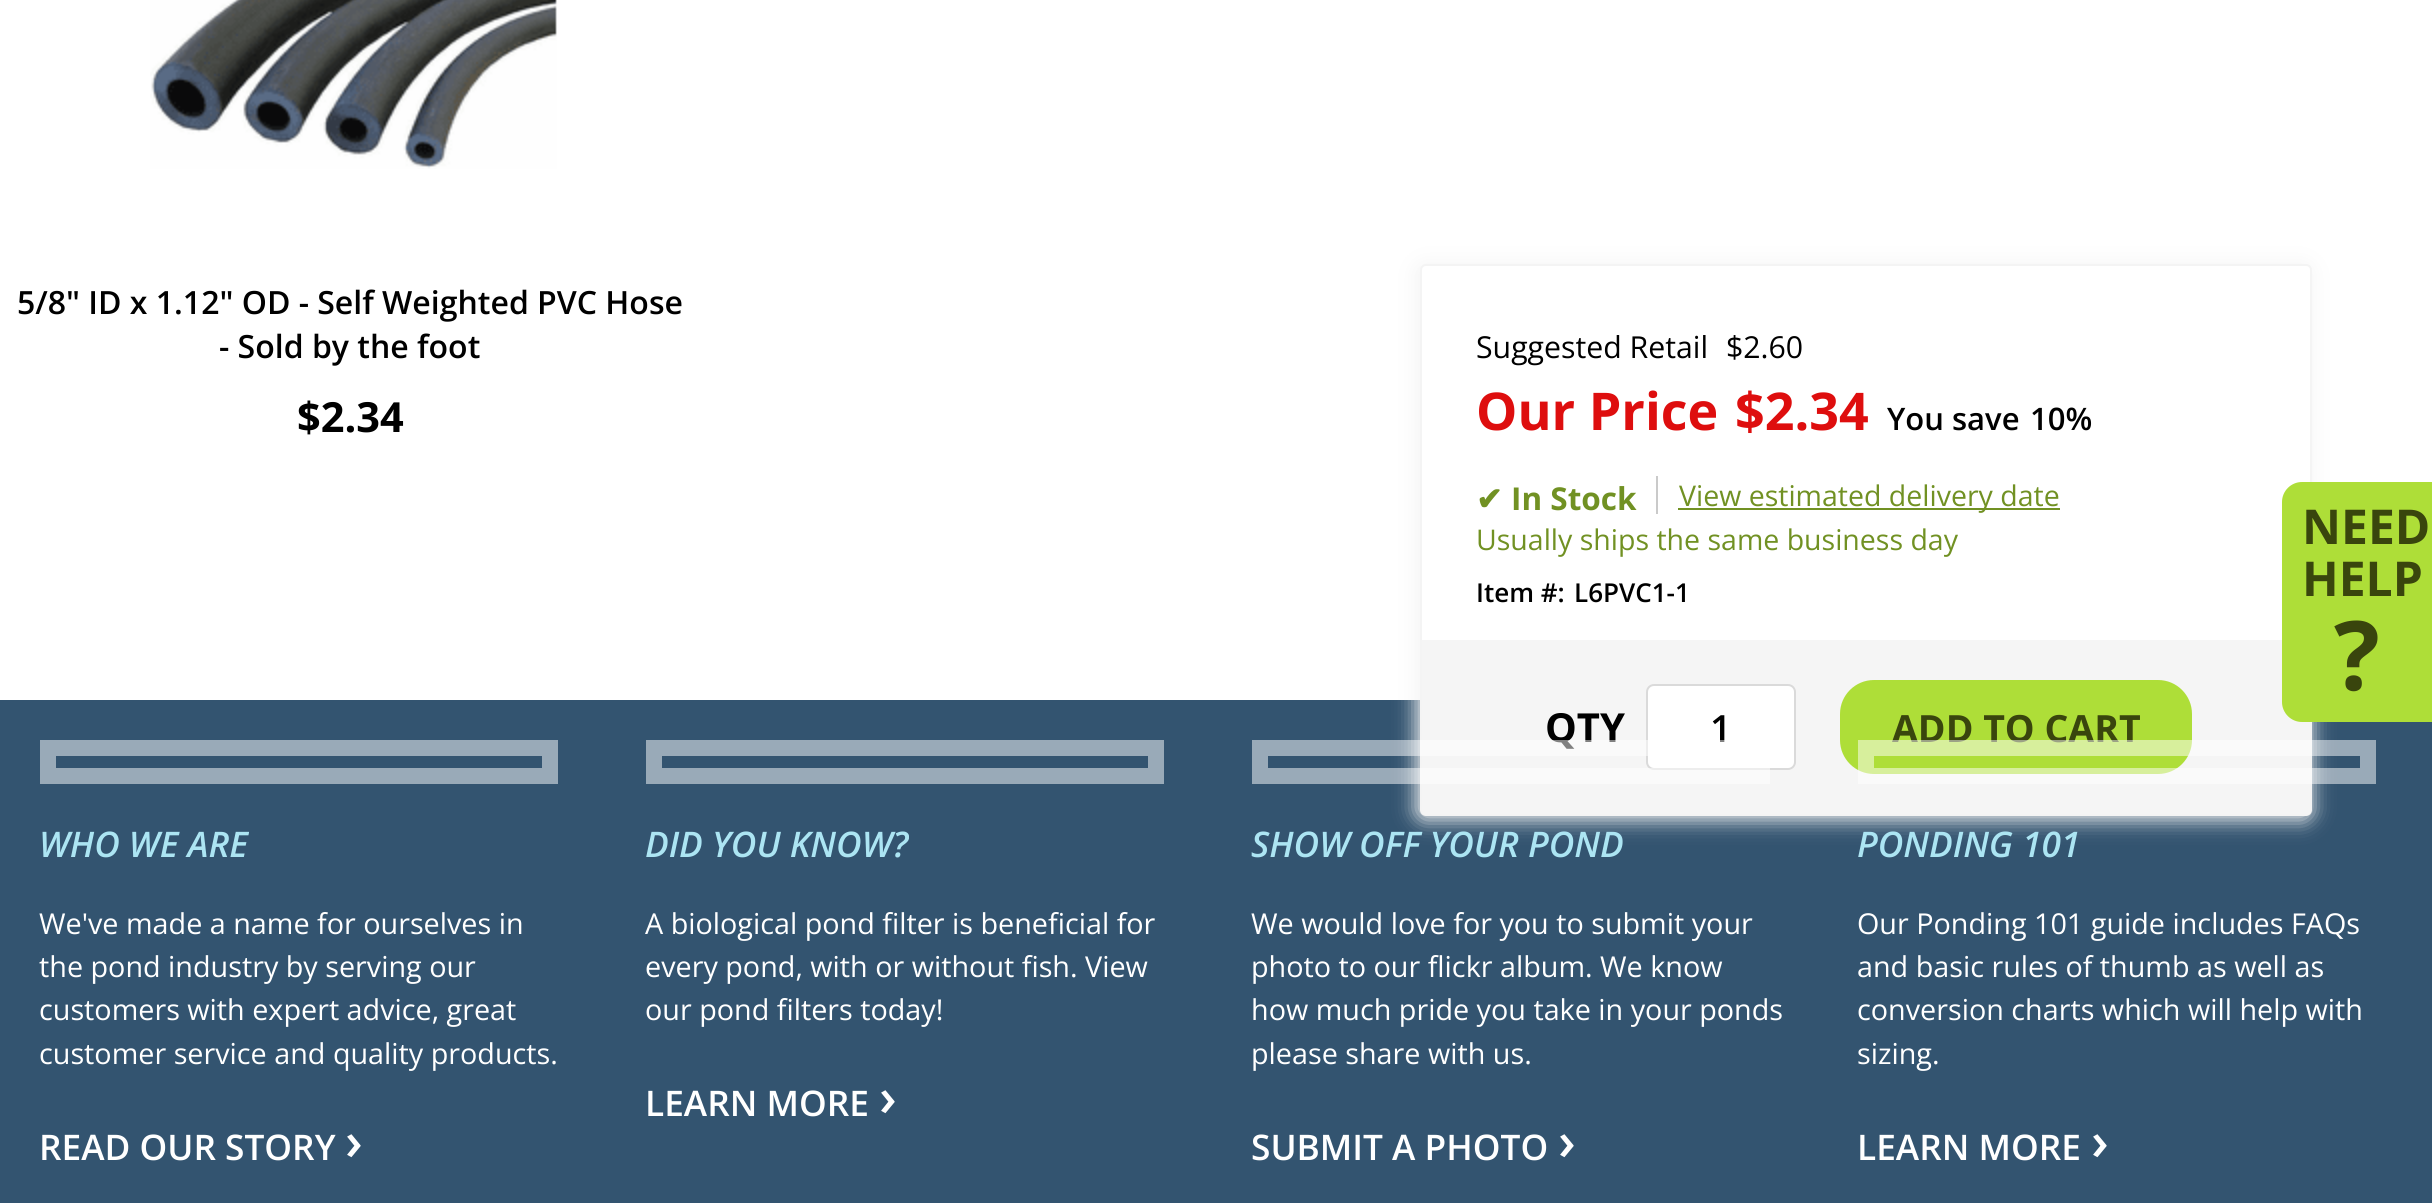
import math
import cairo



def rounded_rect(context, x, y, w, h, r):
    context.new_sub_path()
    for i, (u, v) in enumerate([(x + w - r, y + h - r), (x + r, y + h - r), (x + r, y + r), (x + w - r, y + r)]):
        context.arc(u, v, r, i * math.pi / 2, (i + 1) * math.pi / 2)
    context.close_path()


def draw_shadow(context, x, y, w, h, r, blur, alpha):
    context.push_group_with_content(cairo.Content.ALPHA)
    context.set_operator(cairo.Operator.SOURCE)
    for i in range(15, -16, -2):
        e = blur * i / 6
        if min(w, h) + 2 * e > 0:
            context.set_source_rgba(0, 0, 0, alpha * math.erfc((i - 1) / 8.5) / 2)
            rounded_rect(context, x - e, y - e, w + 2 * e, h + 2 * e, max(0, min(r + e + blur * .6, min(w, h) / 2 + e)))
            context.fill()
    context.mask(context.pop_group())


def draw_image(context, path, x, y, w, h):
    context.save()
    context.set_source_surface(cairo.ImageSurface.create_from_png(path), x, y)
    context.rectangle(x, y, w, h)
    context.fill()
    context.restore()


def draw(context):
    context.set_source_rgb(1, 1, 1)
    context.paint()
    draw_image(context, "images/1.png", 150, 0, 407, 169)
    context.set_source_rgb(51 / 255, 84 / 255, 112 / 255)
    context.rectangle(0, 700, 2432, 503)
    context.fill()
    context.set_source_rgb(244 / 255, 244 / 255, 244 / 255)
    draw_shadow(context, 1416, 264, 896, 556, 8, 10, 1)
    context.set_source_rgb(1, 1, 1)
    rounded_rect(context, 1421, 265, 890, 550, 5)
    context.fill_preserve()
    context.set_source_rgb(244 / 255, 244 / 255, 244 / 255)
    context.stroke()
    context.set_source_rgb(202 / 255, 202 / 255, 202 / 255)
    context.rectangle(1656, 476, 2, 38)
    context.fill()
    context.set_source_rgb(113 / 255, 145 / 255, 35 / 255)
    context.rectangle(1678, 508, 382, 2)
    context.fill()
    context.set_source_rgb(245 / 255, 245 / 255, 245 / 255)
    context.rectangle(1422, 640, 888, 174)
    context.fill()
    context.set_source_rgb(1, 1, 1)
    rounded_rect(context, 1647, 685, 148, 84, 7)
    context.fill_preserve()
    context.set_source_rgb(218 / 255, 218 / 255, 218 / 255)
    context.stroke()
    context.set_source_rgb(174 / 255, 222 / 255, 56 / 255)
    rounded_rect(context, 1841, 681, 350, 92, 33)
    context.fill_preserve()
    context.stroke()
    context.new_path()
    context.move_to(2302, 482)
    context.line_to(2432, 482)
    context.line_to(2432, 722)
    context.line_to(2302, 722)
    context.curve_to(2291, 722, 2282, 713, 2282, 702)
    context.line_to(2282, 502)
    context.curve_to(2282, 491, 2291, 482, 2302, 482)
    context.close_path()
    context.fill()
    context.rectangle(48, 748, 502, 28)
    context.set_source_rgb(153 / 255, 170 / 255, 184 / 255)
    context.set_line_width(16)
    context.stroke()
    context.rectangle(654, 748, 502, 28)
    context.stroke()
    context.select_font_face("Open Sans SemiBold")
    context.set_font_size(32)
    context.set_source_rgb(0, 0, 0)
    context.move_to(17, 314)
    context.show_text("5/8\" ID x 1.12\" OD - Self Weighted PVC Hose")
    context.move_to(219, 358)
    context.show_text("- Sold by the foot")
    context.select_font_face("Open Sans", cairo.FontSlant.NORMAL, cairo.FontWeight.BOLD)
    context.set_font_size(41.5)
    context.move_to(297, 432)
    context.show_text("$2.34")
    context.select_font_face("Open Sans")
    context.set_font_size(30.25)
    context.move_to(1476, 358)
    context.show_text("Suggested Retail")
    context.move_to(1726, 358)
    context.show_text("$2.60")
    context.select_font_face("Open Sans", cairo.FontSlant.NORMAL, cairo.FontWeight.BOLD)
    context.set_font_size(52)
    context.set_source_rgb(222 / 255, 14 / 255, 14 / 255)
    context.move_to(1476, 430)
    context.show_text("Our Price")
    context.move_to(1735, 430)
    context.show_text("$2.34")
    context.select_font_face("Open Sans SemiBold")
    context.set_font_size(31)
    context.set_source_rgb(0, 0, 0)
    context.move_to(1887, 430)
    context.show_text("You save")
    context.move_to(2030, 430)
    context.show_text("10%")
    context.select_font_face("DejaVu Sans", cairo.FontSlant.NORMAL, cairo.FontWeight.BOLD)
    context.set_font_size(31.5)
    context.set_source_rgb(113 / 255, 145 / 255, 35 / 255)
    context.move_to(1476, 510)
    context.show_text("✔")
    context.select_font_face("Open Sans", cairo.FontSlant.NORMAL, cairo.FontWeight.BOLD)
    context.move_to(1511, 510)
    context.show_text("In Stock")
    context.select_font_face("Open Sans")
    context.set_font_size(28.5)
    context.move_to(1679, 506)
    context.show_text("View estimated delivery date")
    context.move_to(1476, 550)
    context.show_text("Usually ships the same business day")
    context.select_font_face("Open Sans SemiBold")
    context.set_font_size(26)
    context.set_source_rgb(0, 0, 0)
    context.move_to(1476, 602)
    context.show_text("Item #:")
    context.move_to(1574, 602)
    context.show_text("L6PVC1-1")
    context.select_font_face("Open Sans", cairo.FontSlant.NORMAL, cairo.FontWeight.BOLD)
    context.set_font_size(40)
    context.move_to(1545, 742)
    context.show_text("QTY")
    context.select_font_face("Open Sans SemiBold")
    context.set_font_size(37.5)
    context.move_to(1710, 742)
    context.show_text("1")
    context.select_font_face("Open Sans", cairo.FontSlant.NORMAL, cairo.FontWeight.BOLD)
    context.set_source_rgb(57 / 255, 69 / 255, 13 / 255)
    context.move_to(1892, 742)
    context.show_text("ADD TO CART")
    context.set_font_size(48)
    context.move_to(2302, 544)
    context.show_text("NEED")
    context.move_to(2302, 596)
    context.show_text("HELP")
    context.set_font_size(96)
    context.move_to(2334, 690)
    context.show_text("?")
    context.select_font_face("Open Sans SemiBold", cairo.FontSlant.ITALIC)
    context.set_font_size(35.25)
    context.set_source_rgb(172 / 255, 229 / 255, 243 / 255)
    context.move_to(39, 857)
    context.show_text("WHO WE ARE")
    context.select_font_face("Open Sans")
    context.set_font_size(28.75)
    context.set_source_rgb(1, 1, 1)
    context.move_to(39, 934)
    context.show_text("We've made a name for ourselves in")
    context.move_to(39, 977)
    context.show_text("the pond industry by serving our")
    context.move_to(39, 1020)
    context.show_text("customers with expert advice, great")
    context.move_to(39, 1064)
    context.show_text("customer service and quality products.")
    context.select_font_face("Open Sans SemiBold")
    context.set_font_size(35.25)
    context.move_to(39, 1160)
    context.show_text("READ OUR STORY")
    context.set_font_size(53)
    context.move_to(345, 1160)
    context.show_text("›")
    context.select_font_face("Open Sans SemiBold", cairo.FontSlant.ITALIC)
    context.set_font_size(35.25)
    context.set_source_rgb(172 / 255, 229 / 255, 243 / 255)
    context.move_to(645, 857)
    context.show_text("DID YOU KNOW?")
    context.select_font_face("Open Sans")
    context.set_font_size(28.75)
    context.set_source_rgb(1, 1, 1)
    context.move_to(645, 934)
    context.show_text("A biological pond filter is beneficial for")
    context.move_to(645, 977)
    context.show_text("every pond, with or without fish. View")
    context.move_to(645, 1020)
    context.show_text("our pond filters today!")
    context.select_font_face("Open Sans SemiBold")
    context.set_font_size(35.25)
    context.move_to(645, 1116)
    context.show_text("LEARN MORE")
    context.set_font_size(53)
    context.move_to(879, 1116)
    context.show_text("›")
    context.rectangle(1260, 748, 502, 28)
    context.set_source_rgba(1, 1, 1, 0.5)
    context.stroke()
    context.select_font_face("Open Sans SemiBold", cairo.FontSlant.ITALIC)
    context.set_font_size(35.25)
    context.set_source_rgb(172 / 255, 229 / 255, 243 / 255)
    context.move_to(1251, 857)
    context.show_text("SHOW OFF YOUR POND")
    context.select_font_face("Open Sans")
    context.set_font_size(28.75)
    context.set_source_rgb(1, 1, 1)
    context.move_to(1251, 934)
    context.show_text("We would love for you to submit your")
    context.move_to(1251, 977)
    context.show_text("photo to our flickr album. We know")
    context.move_to(1251, 1020)
    context.show_text("how much pride you take in your ponds")
    context.move_to(1251, 1064)
    context.show_text("please share with us.")
    context.select_font_face("Open Sans SemiBold")
    context.set_font_size(35.25)
    context.move_to(1251, 1160)
    context.show_text("SUBMIT A PHOTO")
    context.set_font_size(53)
    context.move_to(1558, 1160)
    context.show_text("›")
    context.rectangle(1866, 748, 502, 28)
    context.set_source_rgba(1, 1, 1, 0.5)
    context.stroke()
    context.select_font_face("Open Sans SemiBold", cairo.FontSlant.ITALIC)
    context.set_font_size(35.25)
    context.set_source_rgb(172 / 255, 229 / 255, 243 / 255)
    context.move_to(1857, 857)
    context.show_text("PONDING 101")
    context.select_font_face("Open Sans")
    context.set_font_size(28.75)
    context.set_source_rgb(1, 1, 1)
    context.move_to(1857, 934)
    context.show_text("Our Ponding 101 guide includes FAQs")
    context.move_to(1857, 977)
    context.show_text("and basic rules of thumb as well as")
    context.move_to(1857, 1020)
    context.show_text("conversion charts which will help with")
    context.move_to(1857, 1064)
    context.show_text("sizing.")
    context.select_font_face("Open Sans SemiBold")
    context.set_font_size(35.25)
    context.move_to(1857, 1160)
    context.show_text("LEARN MORE")
    context.set_font_size(53)
    context.move_to(2091, 1160)
    context.show_text("›")


surface = cairo.ImageSurface(cairo.Format.RGB24, 2432, 1203)
context = cairo.Context(surface)
options = cairo.FontOptions()
options.set_hint_metrics(cairo.HintMetrics.OFF)
options.set_hint_style(cairo.HintStyle.NONE)
context.set_font_options(options)
context.set_miter_limit(4)
draw(context)
surface.write_to_png("out.png")
